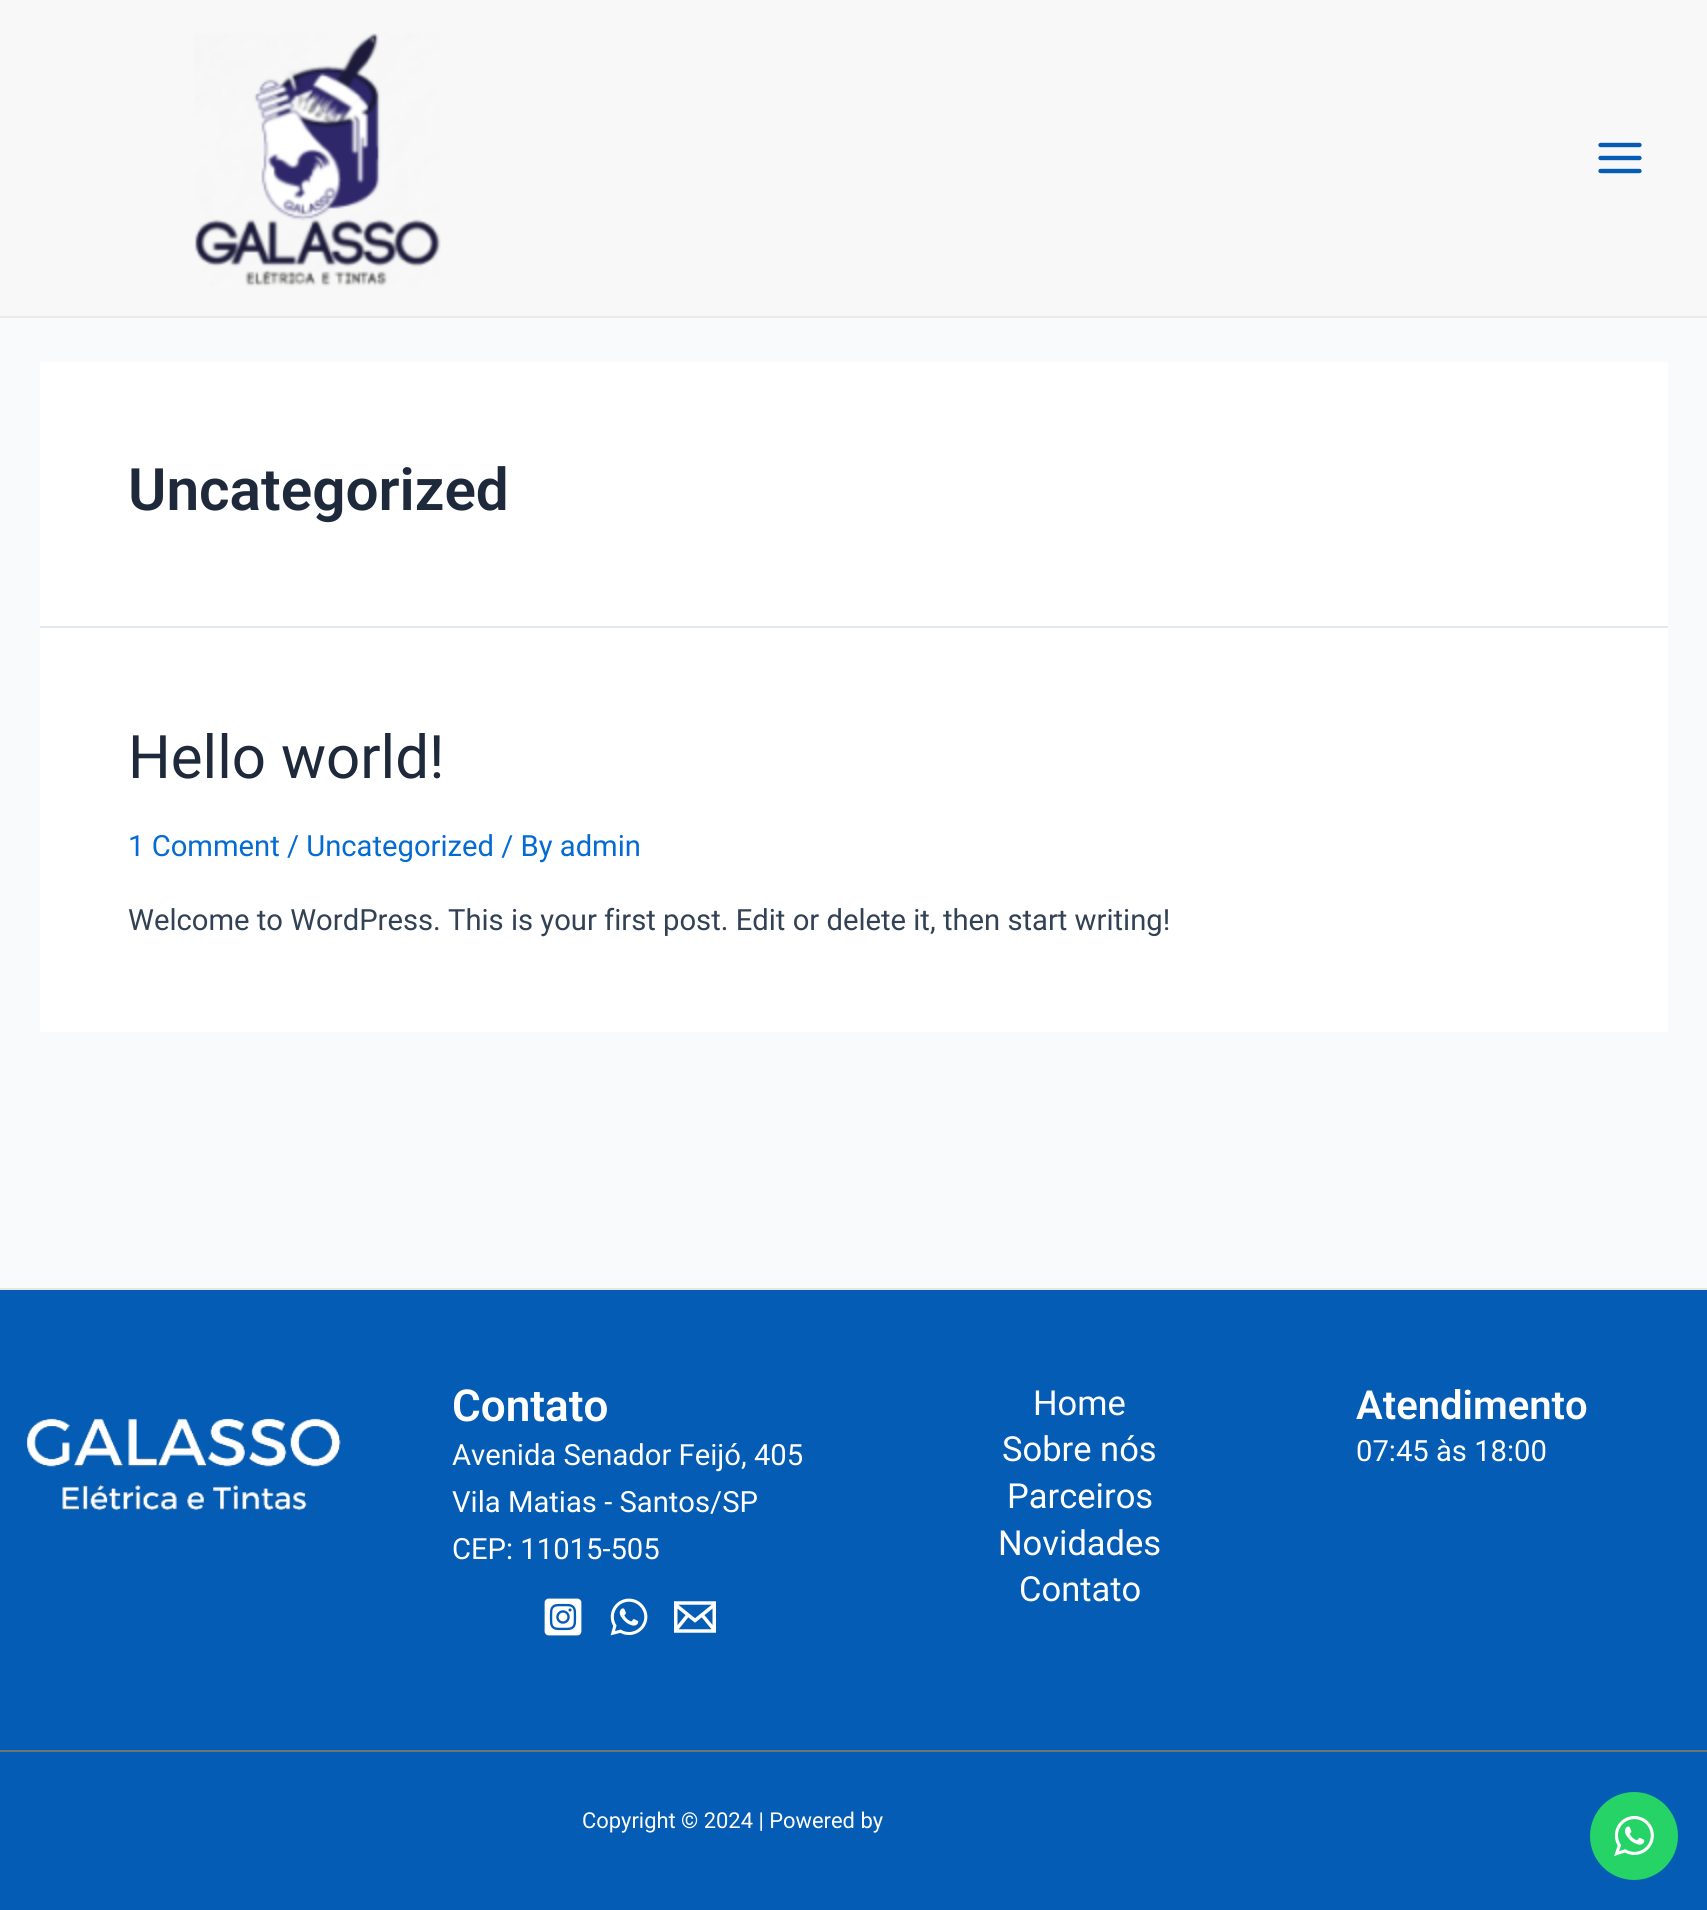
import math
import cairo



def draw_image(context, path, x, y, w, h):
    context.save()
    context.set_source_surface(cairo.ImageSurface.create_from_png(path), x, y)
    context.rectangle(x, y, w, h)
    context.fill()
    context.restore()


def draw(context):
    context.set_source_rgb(249 / 255, 250 / 255, 251 / 255)
    context.paint()
    context.set_source_rgb(248 / 255, 248 / 255, 248 / 255)
    context.rectangle(0, 0, 1707, 316)
    context.fill()
    context.set_source_rgb(234 / 255, 234 / 255, 234 / 255)
    context.rectangle(0, 316, 1707, 2)
    context.fill()
    draw_image(context, "images/1.png", 194, 33, 247, 254)
    draw_image(context, "images/2.png", 1598, 142, 44, 32)
    context.set_source_rgb(1, 1, 1)
    context.rectangle(40, 362, 1628, 264)
    context.fill()
    context.set_source_rgb(226 / 255, 232 / 255, 240 / 255)
    context.rectangle(40, 626, 1628, 2)
    context.fill()
    context.set_source_rgb(1, 1, 1)
    context.rectangle(40, 628, 1628, 404)
    context.fill()
    context.set_source_rgb(4 / 255, 92 / 255, 180 / 255)
    context.rectangle(0, 1290, 1707, 460)
    context.fill()
    context.set_source_rgb(230 / 255, 230 / 255, 230 / 255)
    context.rectangle(0, 1288, 1707, 2)
    context.fill()
    draw_image(context, "images/3.png", 26, 1418, 315, 92)
    draw_image(context, "images/4.png", 544, 1598, 38, 38)
    draw_image(context, "images/5.png", 610, 1598, 38, 38)
    draw_image(context, "images/6.png", 674, 1601, 42, 32)
    context.set_source_rgb(4 / 255, 92 / 255, 180 / 255)
    context.rectangle(0, 1752, 1707, 158)
    context.fill()
    context.set_source_rgb(114 / 255, 114 / 255, 116 / 255)
    context.rectangle(0, 1750, 1707, 2)
    context.fill()
    context.set_source_rgb(37 / 255, 211 / 255, 102 / 255)
    context.arc(1634, 1836, 44, 0, 2 * math.pi)
    context.fill()
    draw_image(context, "images/7.png", 1614, 1816, 40, 40)
    context.select_font_face("Roboto SemiBold")
    context.set_font_size(58.5)
    context.set_source_rgb(30 / 255, 41 / 255, 59 / 255)
    context.move_to(128, 510)
    context.show_text("Uncategorized")
    context.select_font_face("Roboto")
    context.set_font_size(60)
    context.move_to(128, 778)
    context.show_text("Hello world!")
    context.set_font_size(29.2)
    context.set_source_rgb(4 / 255, 107 / 255, 210 / 255)
    context.move_to(128, 856)
    context.show_text("1 Comment / Uncategorized / By admin")
    context.set_source_rgb(51 / 255, 65 / 255, 85 / 255)
    context.move_to(128, 930)
    context.show_text("Welcome to WordPress. This is your first post. Edit or delete it, then start writing!")
    context.select_font_face("Roboto SemiBold")
    context.set_font_size(44)
    context.set_source_rgb(1, 1, 1)
    context.move_to(452, 1421)
    context.show_text("Contato")
    context.select_font_face("Roboto")
    context.set_font_size(29.2)
    context.move_to(452, 1465)
    context.show_text("Avenida Senador Feijó, 405")
    context.move_to(452, 1512)
    context.show_text("Vila Matias - Santos/SP")
    context.move_to(452, 1559)
    context.show_text("CEP: 11015-505")
    context.set_font_size(34.5)
    context.move_to(1033, 1415)
    context.show_text("Home")
    context.move_to(1002, 1461)
    context.show_text("Sobre nós")
    context.move_to(1007, 1508)
    context.show_text("Parceiros")
    context.move_to(998, 1555)
    context.show_text("Novidades")
    context.move_to(1019, 1601)
    context.show_text("Contato")
    context.select_font_face("Roboto SemiBold")
    context.set_font_size(40)
    context.move_to(1356, 1419)
    context.show_text("Atendimento")
    context.select_font_face("Roboto")
    context.set_font_size(29.2)
    context.move_to(1356, 1461)
    context.show_text("07:45 às 18:00")
    context.set_font_size(21.9)
    context.move_to(582, 1828)
    context.show_text("Copyright © 2024 | Powered by")


surface = cairo.ImageSurface(cairo.Format.RGB24, 1707, 1910)
context = cairo.Context(surface)
options = cairo.FontOptions()
options.set_hint_metrics(cairo.HintMetrics.OFF)
options.set_hint_style(cairo.HintStyle.NONE)
context.set_font_options(options)
context.set_miter_limit(4)
draw(context)
surface.write_to_png("out.png")
